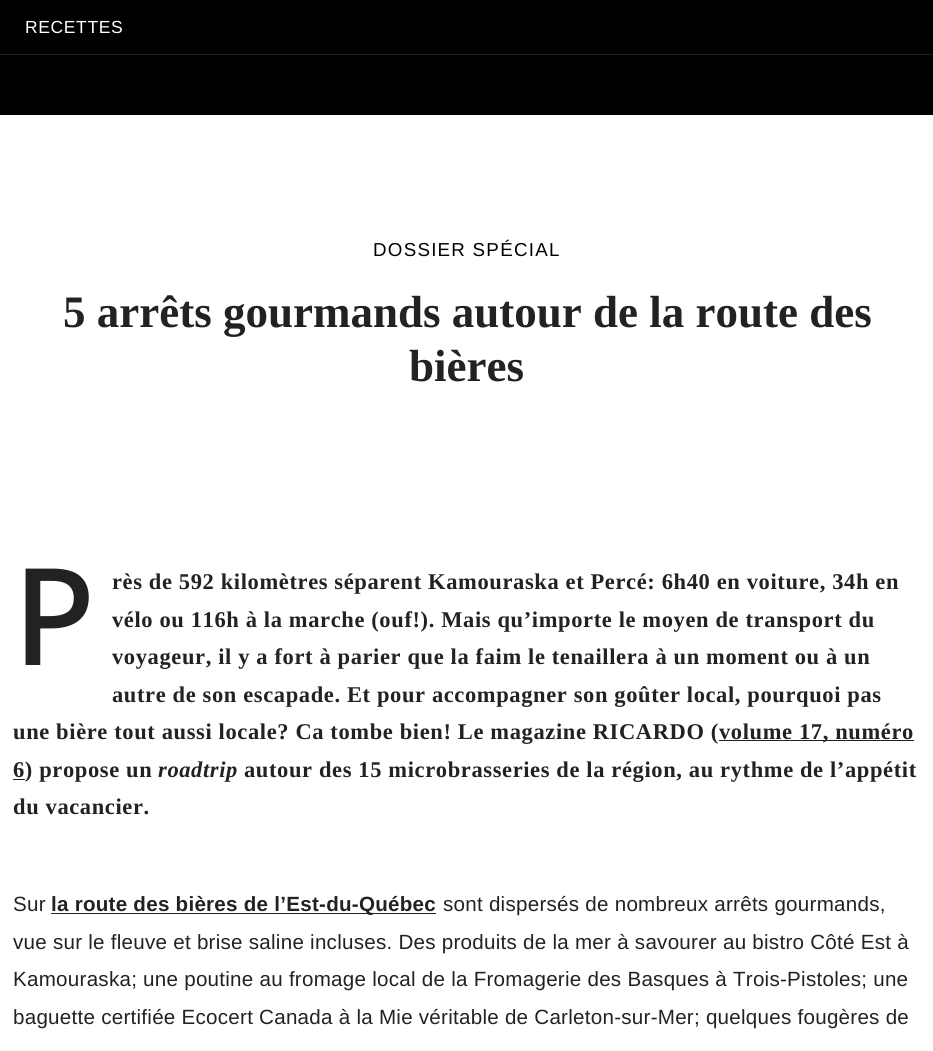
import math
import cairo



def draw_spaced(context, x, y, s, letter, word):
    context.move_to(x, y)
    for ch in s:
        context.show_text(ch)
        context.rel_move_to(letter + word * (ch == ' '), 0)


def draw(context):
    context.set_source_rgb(1, 1, 1)
    context.paint()
    context.set_source_rgb(0, 0, 0)
    context.rectangle(0, 0, 933, 54)
    context.fill()
    context.set_source_rgb(31 / 255, 31 / 255, 31 / 255)
    context.rectangle(0, 54, 933, 1)
    context.fill()
    context.set_source_rgb(0, 0, 0)
    context.rectangle(0, 55, 933, 60)
    context.fill()
    context.set_source_rgb(34 / 255, 34 / 255, 34 / 255)
    context.rectangle(719, 740, 195, 1)
    context.fill()
    context.rectangle(13, 779, 12, 1)
    context.fill()
    context.rectangle(51, 913, 385, 1)
    context.fill()
    context.select_font_face("Liberation Sans")
    context.set_font_size(17.5)
    context.set_source_rgb(1, 1, 1)
    draw_spaced(context, 25, 33, "RECETTES", 0.62, 0)
    context.set_font_size(18.75)
    context.set_source_rgb(0, 0, 0)
    draw_spaced(context, 373, 256, "DOSSIER SPÉCIAL", 1.25, 0)
    context.select_font_face("Liberation Serif", cairo.FontSlant.NORMAL, cairo.FontWeight.BOLD)
    context.set_font_size(45)
    context.set_source_rgb(34 / 255, 34 / 255, 34 / 255)
    context.move_to(63, 327)
    context.show_text("5 arrêts gourmands autour de la route des")
    context.move_to(409, 381)
    context.show_text("bières")
    context.select_font_face("Noto Sans Medium")
    context.set_font_size(135)
    draw_spaced(context, 13, 665, "P", 0.62, 0)
    context.select_font_face("Liberation Serif", cairo.FontSlant.NORMAL, cairo.FontWeight.BOLD)
    context.set_font_size(22.5)
    draw_spaced(context, 112, 589, "rès de 592 kilomètres séparent Kamouraska et Percé: 6h40 en voiture, 34h en", 0.62, 0)
    draw_spaced(context, 112, 627, "vélo ou 116h à la marche (ouf!). Mais qu’importe le moyen de transport du", 0.62, 0)
    draw_spaced(context, 112, 664, "voyageur, il y a fort à parier que la faim le tenaillera à un moment ou à un", 0.62, 0)
    draw_spaced(context, 112, 702, "autre de son escapade. Et pour accompagner son goûter local, pourquoi pas", 0.62, 0)
    draw_spaced(context, 13, 739, "une bière tout aussi locale? Ca tombe bien! Le magazine RICARDO (", 0.62, 0)
    draw_spaced(context, 719, 739, "volume 17, numéro", 0.62, 0)
    draw_spaced(context, 13, 777, "6) propose un", 0.62, 0)
    context.select_font_face("Liberation Serif", cairo.FontSlant.ITALIC, cairo.FontWeight.BOLD)
    draw_spaced(context, 158, 777, "roadtrip", 0.62, 0)
    context.select_font_face("Liberation Serif", cairo.FontSlant.NORMAL, cairo.FontWeight.BOLD)
    draw_spaced(context, 244, 777, "autour des 15 microbrasseries de la région, au rythme de l’appétit", 0.62, 0)
    draw_spaced(context, 13, 814, "du vacancier.", 0.62, 0)
    context.select_font_face("Liberation Sans")
    context.set_font_size(20.6)
    draw_spaced(context, 13, 911, "Sur", 0.25, 0)
    context.select_font_face("Liberation Sans", cairo.FontSlant.NORMAL, cairo.FontWeight.BOLD)
    draw_spaced(context, 51, 911, "la route des bières de l’Est-du-Québec", 0.25, 0)
    context.select_font_face("Liberation Sans")
    draw_spaced(context, 443, 911, "sont dispersés de nombreux arrêts gourmands,", 0.25, 0)
    draw_spaced(context, 13, 949, "vue sur le fleuve et brise saline incluses. Des produits de la mer à savourer au bistro Côté Est à", 0.25, 0)
    draw_spaced(context, 13, 986, "Kamouraska; une poutine au fromage local de la Fromagerie des Basques à Trois-Pistoles; une", 0.25, 0)
    draw_spaced(context, 13, 1024, "baguette certifiée Ecocert Canada à la Mie véritable de Carleton-sur-Mer; quelques fougères de", 0.25, 0)


surface = cairo.ImageSurface(cairo.Format.RGB24, 933, 1051)
context = cairo.Context(surface)
options = cairo.FontOptions()
options.set_hint_metrics(cairo.HintMetrics.OFF)
options.set_hint_style(cairo.HintStyle.NONE)
context.set_font_options(options)
context.set_miter_limit(4)
draw(context)
surface.write_to_png("out.png")
